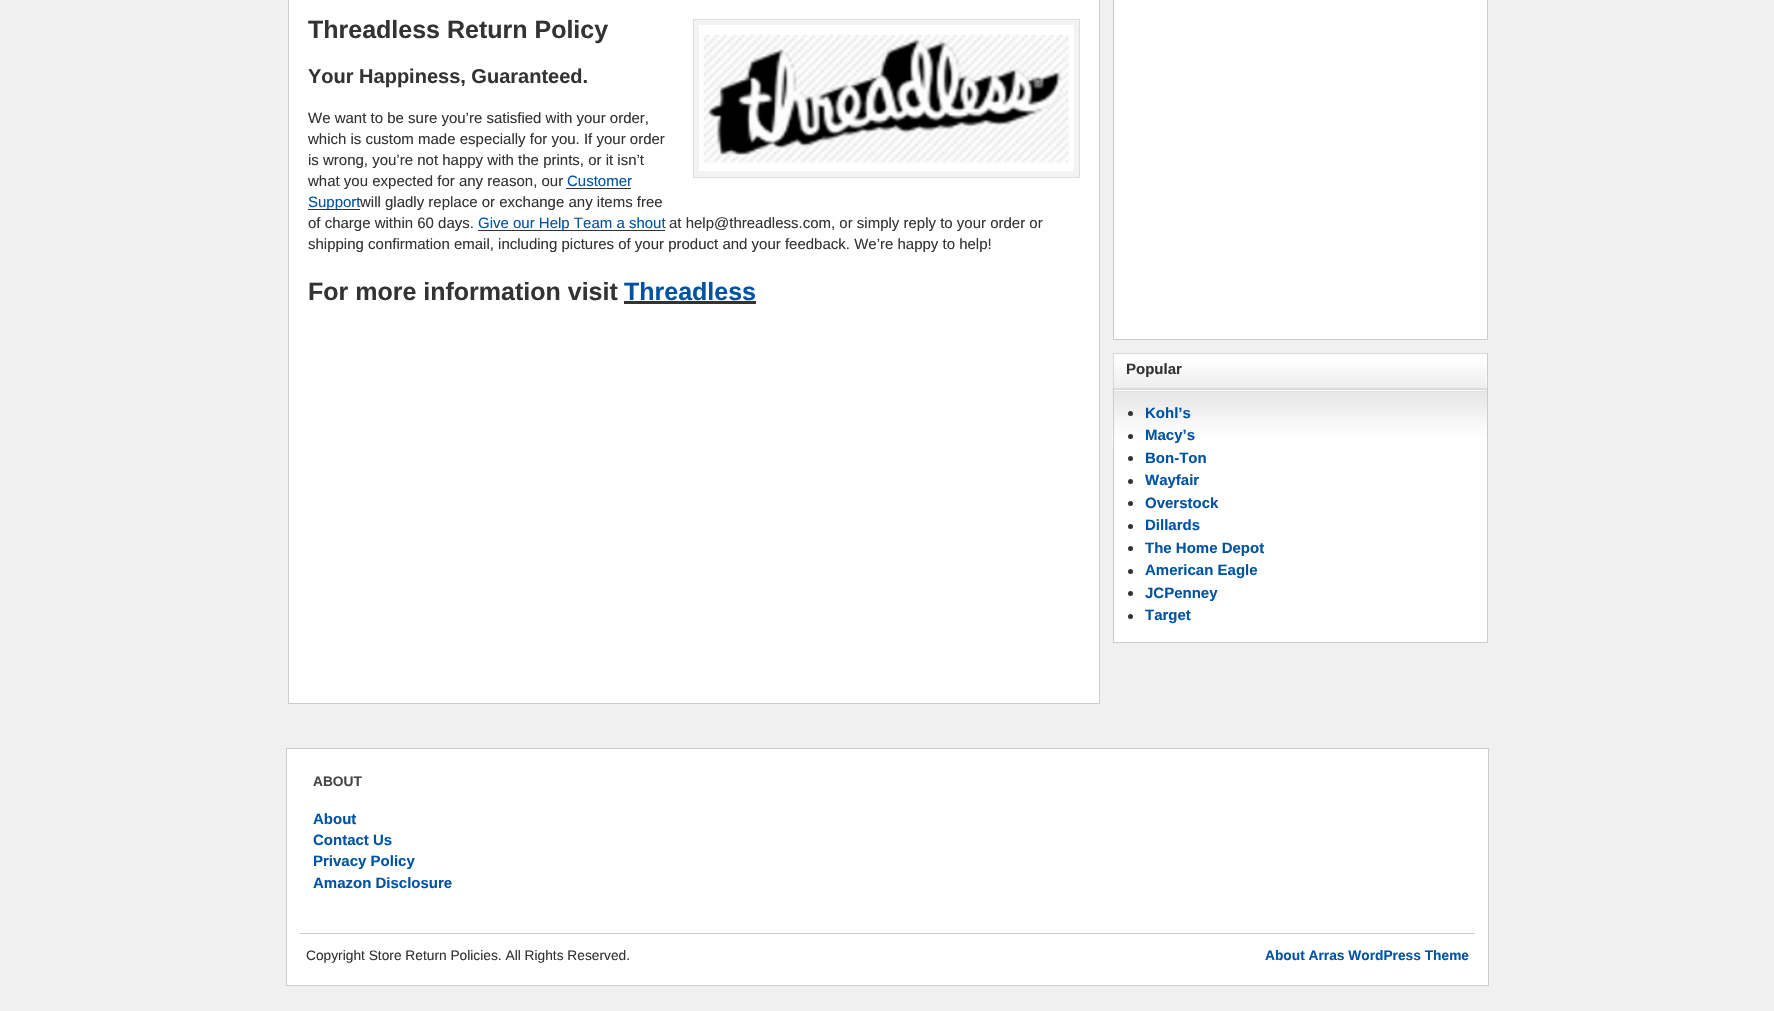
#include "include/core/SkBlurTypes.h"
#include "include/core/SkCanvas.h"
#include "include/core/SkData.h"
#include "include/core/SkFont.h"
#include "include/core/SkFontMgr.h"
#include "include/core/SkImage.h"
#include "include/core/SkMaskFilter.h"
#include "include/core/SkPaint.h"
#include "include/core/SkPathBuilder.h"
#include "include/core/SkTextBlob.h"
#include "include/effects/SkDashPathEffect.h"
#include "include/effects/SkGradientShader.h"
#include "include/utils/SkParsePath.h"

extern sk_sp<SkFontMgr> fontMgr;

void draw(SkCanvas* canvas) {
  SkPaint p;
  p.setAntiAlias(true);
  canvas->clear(SkColorSetRGB(240, 240, 240));
  p.setColor(SK_ColorWHITE);
  canvas->drawRect(SkRect::MakeLTRB(288.5f, -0.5f, 1099.5f, 703.5f), p);
  p.setStyle(SkPaint::kStroke_Style);
  p.setStrokeWidth(1);
  p.setColor(SkColorSetRGB(204, 204, 204));
  canvas->drawRect(SkRect::MakeLTRB(288.5f, -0.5f, 1099.5f, 703.5f), p);
  p.setStyle(SkPaint::kFill_Style);
  p.setColor(SkColorSetRGB(243, 243, 243));
  canvas->drawRect(SkRect::MakeLTRB(693.5f, 19.5f, 1079.5f, 177.5f), p);
  p.setStyle(SkPaint::kStroke_Style);
  p.setColor(SkColorSetRGB(221, 221, 221));
  canvas->drawRect(SkRect::MakeLTRB(693.5f, 19.5f, 1079.5f, 177.5f), p);
  canvas->drawImageRect(SkImages::DeferredFromEncodedData(SkData::MakeFromFileName("images/1.png")), SkRect::MakeLTRB(699, 25, 1074, 171), SkSamplingOptions());
  p.setStyle(SkPaint::kFill_Style);
  p.setColor(SkColorSetRGB(51, 51, 51));
  canvas->drawRect(SkRect::MakeLTRB(566, 188, 631, 189), p);
  canvas->drawRect(SkRect::MakeLTRB(308, 209, 360, 210), p);
  canvas->drawRect(SkRect::MakeLTRB(478, 230, 665, 231), p);
  canvas->drawRect(SkRect::MakeLTRB(624, 301, 756, 304), p);
  p.setColor(SK_ColorWHITE);
  canvas->drawRect(SkRect::MakeLTRB(1113.5f, -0.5f, 1487.5f, 339.5f), p);
  p.setStyle(SkPaint::kStroke_Style);
  p.setColor(SkColorSetRGB(204, 204, 204));
  canvas->drawRect(SkRect::MakeLTRB(1113.5f, -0.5f, 1487.5f, 339.5f), p);
  p.setStyle(SkPaint::kFill_Style);
  p.setColor(SK_ColorWHITE);
  canvas->drawRect(SkRect::MakeLTRB(1114, 354, 1487, 642), p);
  canvas->drawImageRect(SkImages::DeferredFromEncodedData(SkData::MakeFromFileName("images/2.png")), SkRect::MakeLTRB(1112, 386, 1487, 449), SkSamplingOptions());
  p.setStyle(SkPaint::kStroke_Style);
  p.setColor(SkColorSetRGB(204, 204, 204));
  canvas->drawRect(SkRect::MakeLTRB(1113.5f, 353.5f, 1487.5f, 642.5f), p);
  canvas->drawImageRect(SkImages::DeferredFromEncodedData(SkData::MakeFromFileName("images/3.png")), SkRect::MakeLTRB(1113, 353, 1487, 392), SkSamplingOptions());
  p.setStyle(SkPaint::kFill_Style);
  p.setColor(SK_ColorWHITE);
  canvas->drawRect(SkRect::MakeLTRB(1114, 390, 1486, 391), p);
  p.setColor(SkColorSetRGB(51, 51, 51));
  canvas->drawCircle(1130.5f, 413.5f, 2.5f, p);
  canvas->drawCircle(1130.5f, 436.5f, 2.5f, p);
  canvas->drawCircle(1130.5f, 458.5f, 2.5f, p);
  canvas->drawCircle(1130.5f, 481.5f, 2.5f, p);
  canvas->drawCircle(1130.5f, 503.5f, 2.5f, p);
  canvas->drawCircle(1130.5f, 526.5f, 2.5f, p);
  canvas->drawCircle(1130.5f, 548.5f, 2.5f, p);
  canvas->drawCircle(1130.5f, 571.5f, 2.5f, p);
  canvas->drawCircle(1130.5f, 593.5f, 2.5f, p);
  canvas->drawCircle(1130.5f, 616.5f, 2.5f, p);
  p.setColor(SK_ColorWHITE);
  canvas->drawRect(SkRect::MakeLTRB(286.5f, 748.5f, 1488.5f, 985.5f), p);
  p.setStyle(SkPaint::kStroke_Style);
  p.setColor(SkColorSetRGB(204, 204, 204));
  canvas->drawRect(SkRect::MakeLTRB(286.5f, 748.5f, 1488.5f, 985.5f), p);
  p.setStyle(SkPaint::kFill_Style);
  canvas->drawRect(SkRect::MakeLTRB(300, 933, 1475, 934), p);
  canvas->save();
  canvas->clipRect(SkRect::MakeLTRB(308, 0, 1080, 678));
  SkFont font1(fontMgr->matchFamilyStyle("Liberation Sans", SkFontStyle::Bold()), 25);
  font1.setSubpixel(true);
  p.setColor(SkColorSetRGB(51, 51, 51));
  canvas->drawString("Threadless Return Policy", 308, 38, font1, p);
  canvas->restore();
  SkFont font2(fontMgr->matchFamilyStyle("Liberation Sans", SkFontStyle::Bold()), 20);
  font2.setSubpixel(true);
  canvas->drawString("Your Happiness, Guaranteed.", 308, 83, font2, p);
  SkFont font3(fontMgr->matchFamilyStyle("Liberation Sans", SkFontStyle::Normal()), 15);
  font3.setSubpixel(true);
  canvas->drawString("We want to be sure you’re satisfied with your order,", 308, 123, font3, p);
  canvas->drawString("which is custom made especially for you. If your order", 308, 144, font3, p);
  canvas->drawString("is wrong, you’re not happy with the prints, or it isn’t", 308, 165, font3, p);
  canvas->drawString("what you expected for any reason, our", 308, 186, font3, p);
  p.setColor(SkColorSetRGB(0, 82, 163));
  canvas->drawString("Customer", 567, 186, font3, p);
  canvas->drawString("Support", 308, 207, font3, p);
  p.setColor(SkColorSetRGB(51, 51, 51));
  canvas->drawString("will gladly replace or exchange any items free", 360, 207, font3, p);
  canvas->drawString("of charge within 60 days.", 308, 228, font3, p);
  p.setColor(SkColorSetRGB(0, 82, 163));
  canvas->drawString("Give our Help Team a shout", 478, 228, font3, p);
  p.setColor(SkColorSetRGB(51, 51, 51));
  canvas->drawString("at help@threadless.com, or simply reply to your order or", 669, 228, font3, p);
  canvas->drawString("shipping confirmation email, including pictures of your product and your feedback. We’re happy to help!", 308, 249, font3, p);
  canvas->drawString("For more information visit", 308, 300, font1, p);
  p.setColor(SkColorSetRGB(0, 82, 163));
  canvas->drawString("Threadless", 624, 300, font1, p);
  SkFont font4(fontMgr->matchFamilyStyle("Liberation Sans", SkFontStyle::Bold()), 15);
  font4.setSubpixel(true);
  p.setColor(SkColorSetRGB(51, 51, 51));
  canvas->drawString("Popular", 1126, 374, font4, p);
  p.setColor(SkColorSetRGB(0, 82, 163));
  canvas->drawString("Kohl’s", 1145, 418, font4, p);
  canvas->drawString("Macy’s", 1145, 440, font4, p);
  canvas->drawString("Bon-Ton", 1145, 463, font4, p);
  canvas->drawString("Wayfair", 1145, 485, font4, p);
  canvas->drawString("Overstock", 1145, 508, font4, p);
  canvas->drawString("Dillards", 1145, 530, font4, p);
  canvas->drawString("The Home Depot", 1145, 553, font4, p);
  canvas->drawString("American Eagle", 1145, 575, font4, p);
  canvas->drawString("JCPenney", 1145, 598, font4, p);
  canvas->drawString("Target", 1145, 620, font4, p);
  SkFont font5(fontMgr->matchFamilyStyle("Liberation Sans", SkFontStyle::Bold()), 13.75f);
  font5.setSubpixel(true);
  p.setColor(SkColorSetRGB(68, 68, 68));
  canvas->drawString("ABOUT", 313, 786, font5, p);
  p.setColor(SkColorSetRGB(0, 82, 163));
  canvas->drawString("About", 313, 824, font4, p);
  canvas->drawString("Contact Us", 313, 845, font4, p);
  canvas->drawString("Privacy Policy", 313, 866, font4, p);
  canvas->drawString("Amazon Disclosure", 313, 888, font4, p);
  SkFont font6(fontMgr->matchFamilyStyle("Liberation Sans", SkFontStyle::Normal()), 13.75f);
  font6.setSubpixel(true);
  p.setColor(SkColorSetRGB(51, 51, 51));
  canvas->drawString("Copyright Store Return Policies. All Rights Reserved.", 306, 960, font6, p);
  p.setColor(SkColorSetRGB(0, 82, 163));
  canvas->drawString("About Arras WordPress Theme", 1265, 960, font5, p);
}
